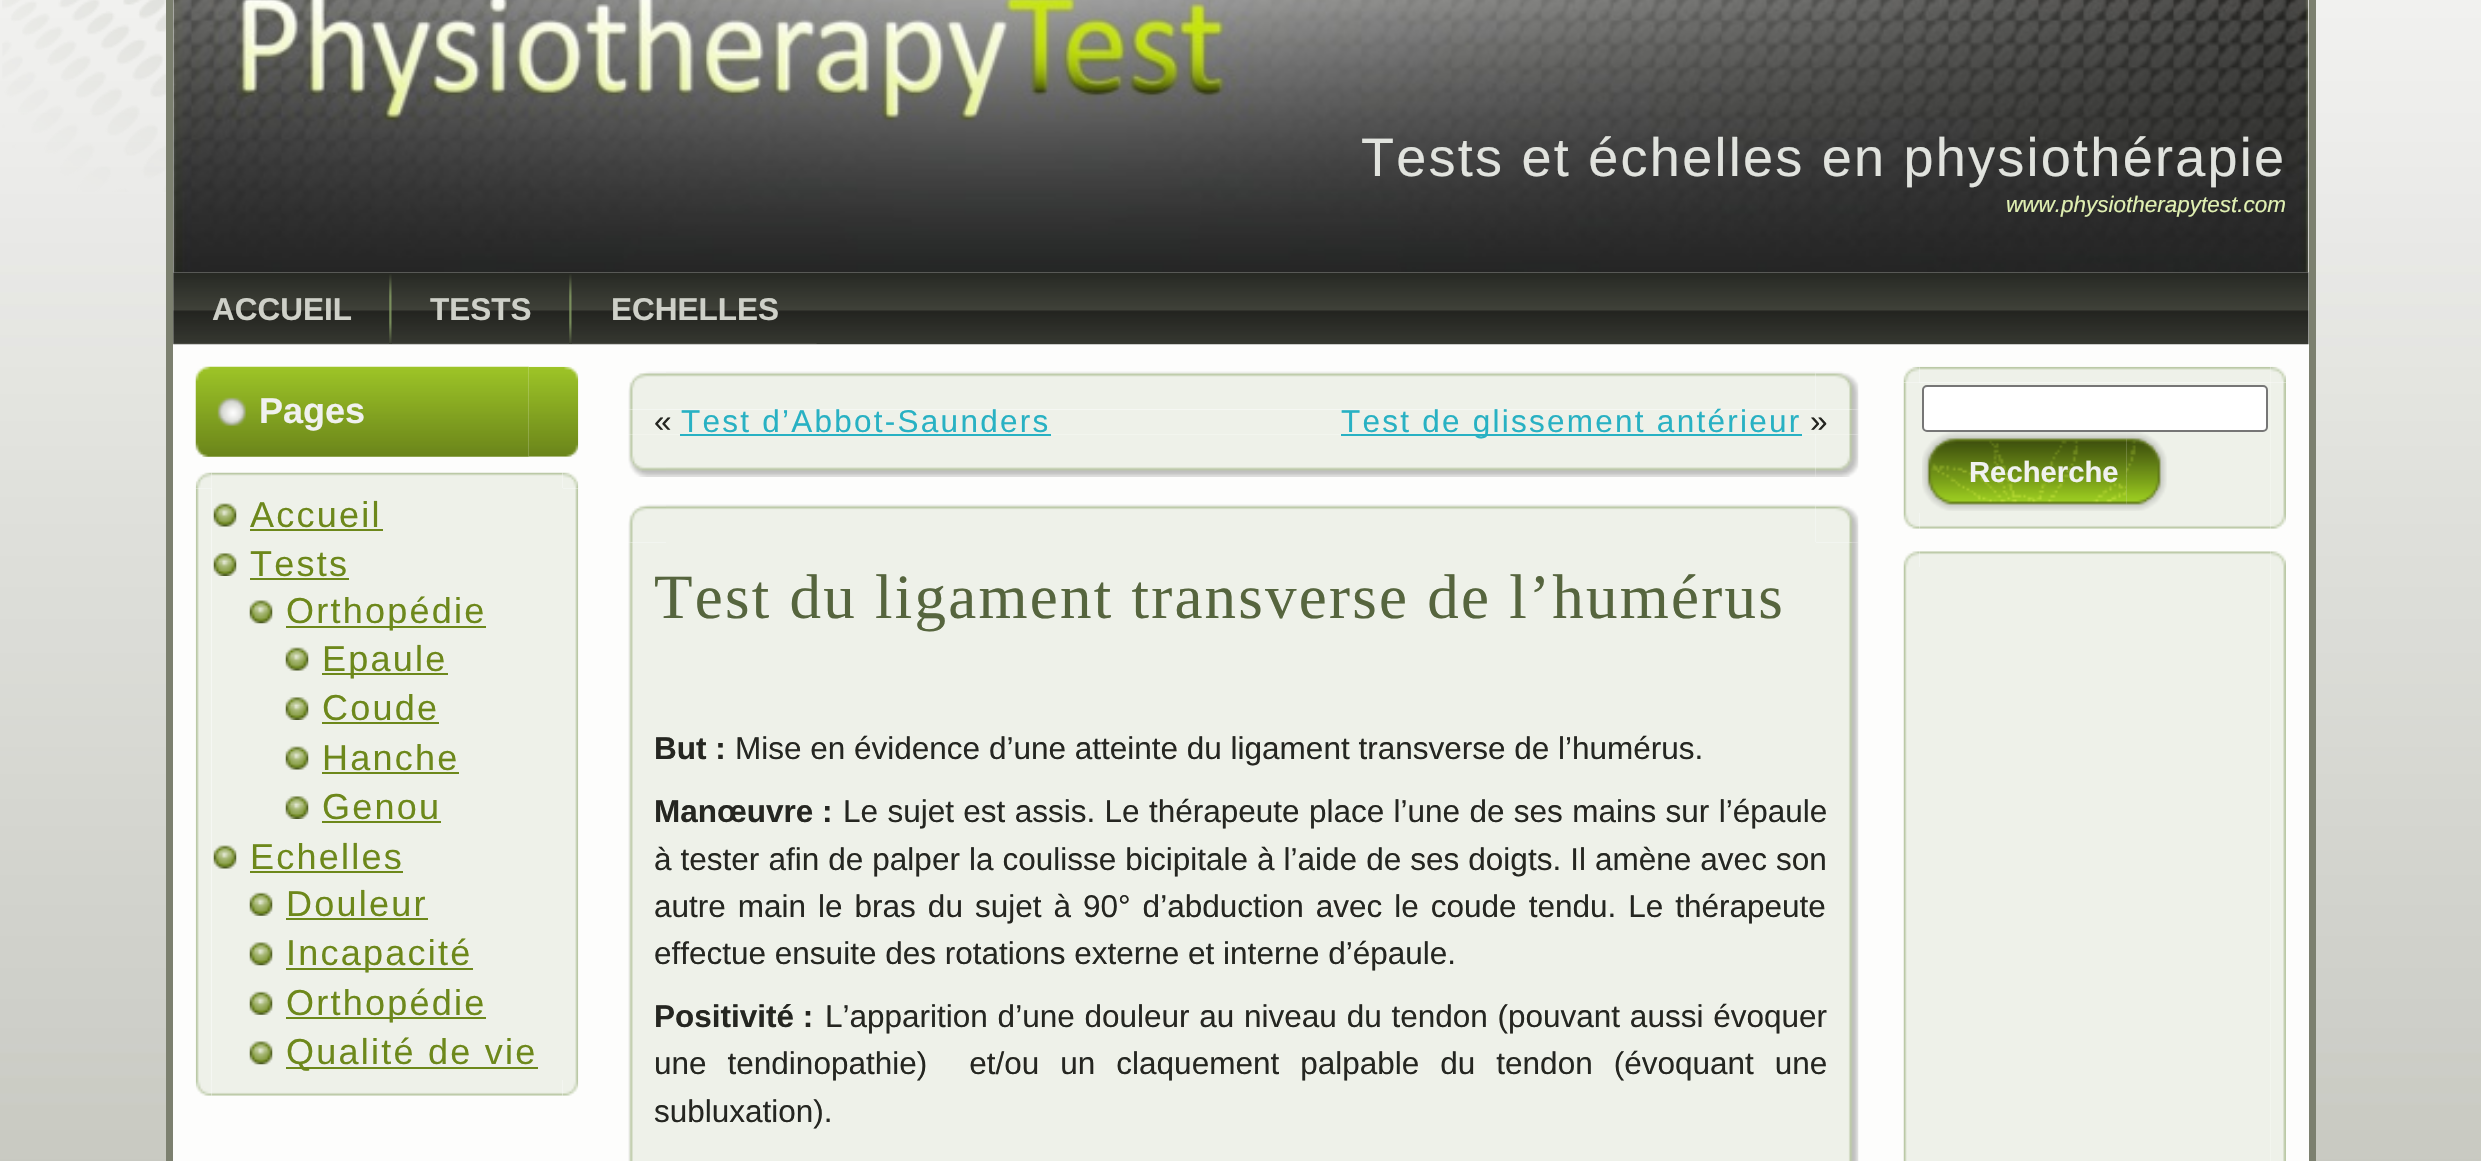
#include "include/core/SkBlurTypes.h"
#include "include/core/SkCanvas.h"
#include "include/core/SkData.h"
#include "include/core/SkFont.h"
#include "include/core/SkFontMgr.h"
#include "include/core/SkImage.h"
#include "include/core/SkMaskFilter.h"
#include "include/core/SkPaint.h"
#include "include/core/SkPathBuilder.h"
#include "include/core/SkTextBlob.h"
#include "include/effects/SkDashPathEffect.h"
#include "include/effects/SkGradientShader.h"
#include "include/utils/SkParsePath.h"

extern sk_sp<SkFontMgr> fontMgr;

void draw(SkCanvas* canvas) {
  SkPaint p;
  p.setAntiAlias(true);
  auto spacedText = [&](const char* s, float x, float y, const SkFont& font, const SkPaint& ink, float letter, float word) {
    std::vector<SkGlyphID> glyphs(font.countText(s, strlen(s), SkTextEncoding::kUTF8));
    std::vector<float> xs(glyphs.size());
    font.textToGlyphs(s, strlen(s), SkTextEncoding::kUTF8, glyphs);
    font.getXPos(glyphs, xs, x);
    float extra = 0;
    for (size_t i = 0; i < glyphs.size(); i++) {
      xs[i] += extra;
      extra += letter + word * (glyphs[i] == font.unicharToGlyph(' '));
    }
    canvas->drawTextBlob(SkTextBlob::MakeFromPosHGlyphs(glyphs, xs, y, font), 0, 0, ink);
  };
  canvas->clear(SK_ColorWHITE);
  canvas->drawImageRect(SkImages::DeferredFromEncodedData(SkData::MakeFromFileName("images/1.png")), SkRect::MakeLTRB(0, 0, 2481, 1161), SkSamplingOptions());
  canvas->drawImageRect(SkImages::DeferredFromEncodedData(SkData::MakeFromFileName("images/2.png")), SkRect::MakeLTRB(2, 0, 166, 192), SkSamplingOptions());
  p.setColor(SkColorSetRGB(124, 128, 111));
  canvas->drawRect(SkRect::MakeLTRB(166, 0, 173, 1161), p);
  p.setColor(SkColorSetRGB(253, 253, 252));
  canvas->drawRect(SkRect::MakeLTRB(173, 0, 2309, 1161), p);
  p.setColor(SkColorSetRGB(124, 128, 111));
  canvas->drawRect(SkRect::MakeLTRB(2309, 0, 2316, 1161), p);
  canvas->drawImageRect(SkImages::DeferredFromEncodedData(SkData::MakeFromFileName("images/3.png")), SkRect::MakeLTRB(173, 0, 2309, 273), SkSamplingOptions());
  canvas->drawImageRect(SkImages::DeferredFromEncodedData(SkData::MakeFromFileName("images/4.png")), SkRect::MakeLTRB(173, 272, 2309, 345), SkSamplingOptions());
  canvas->drawImageRect(SkImages::DeferredFromEncodedData(SkData::MakeFromFileName("images/5.png")), SkRect::MakeLTRB(173, 343, 389, 344), SkSamplingOptions());
  canvas->drawImageRect(SkImages::DeferredFromEncodedData(SkData::MakeFromFileName("images/6.png")), SkRect::MakeLTRB(389, 274, 392, 344), SkSamplingOptions());
  p.setColor(SkColorSetRGB(70, 72, 65));
  canvas->drawRect(SkRect::MakeLTRB(392, 343, 569, 344), p);
  canvas->drawImageRect(SkImages::DeferredFromEncodedData(SkData::MakeFromFileName("images/6.png")), SkRect::MakeLTRB(569, 274, 572, 344), SkSamplingOptions());
  canvas->drawImageRect(SkImages::DeferredFromEncodedData(SkData::MakeFromFileName("images/7.png")), SkRect::MakeLTRB(572, 343, 817, 344), SkSamplingOptions());
  canvas->drawImageRect(SkImages::DeferredFromEncodedData(SkData::MakeFromFileName("images/8.png")), SkRect::MakeLTRB(195, 366, 529, 457), SkSamplingOptions());
  canvas->drawImageRect(SkImages::DeferredFromEncodedData(SkData::MakeFromFileName("images/9.png")), SkRect::MakeLTRB(528, 366, 579, 457), SkSamplingOptions());
  canvas->drawImageRect(SkImages::DeferredFromEncodedData(SkData::MakeFromFileName("images/10.png")), SkRect::MakeLTRB(195, 472, 212, 489), SkSamplingOptions());
  canvas->drawImageRect(SkImages::DeferredFromEncodedData(SkData::MakeFromFileName("images/12.png")), SkRect::MakeLTRB(562, 472, 579, 489), SkSamplingOptions());
  canvas->drawImageRect(SkImages::DeferredFromEncodedData(SkData::MakeFromFileName("images/11.png")), SkRect::MakeLTRB(211, 472, 563, 489), SkSamplingOptions());
  canvas->drawImageRect(SkImages::DeferredFromEncodedData(SkData::MakeFromFileName("images/13.png")), SkRect::MakeLTRB(195, 488, 212, 1080), SkSamplingOptions());
  p.setColor(SkColorSetRGB(238, 241, 233));
  canvas->drawRect(SkRect::MakeLTRB(212, 488, 563, 1080), p);
  canvas->drawImageRect(SkImages::DeferredFromEncodedData(SkData::MakeFromFileName("images/14.png")), SkRect::MakeLTRB(563, 488, 579, 1080), SkSamplingOptions());
  canvas->drawImageRect(SkImages::DeferredFromEncodedData(SkData::MakeFromFileName("images/15.png")), SkRect::MakeLTRB(213, 503, 237, 527), SkSamplingOptions());
  p.setColor(SkColorSetRGB(109, 136, 27));
  canvas->drawRect(SkRect::MakeLTRB(250, 529, 383, 531), p);
  canvas->drawImageRect(SkImages::DeferredFromEncodedData(SkData::MakeFromFileName("images/16.png")), SkRect::MakeLTRB(213, 553, 237, 576), SkSamplingOptions());
  canvas->drawRect(SkRect::MakeLTRB(250, 578, 349, 580), p);
  canvas->drawImageRect(SkImages::DeferredFromEncodedData(SkData::MakeFromFileName("images/17.png")), SkRect::MakeLTRB(249, 600, 273, 624), SkSamplingOptions());
  canvas->drawRect(SkRect::MakeLTRB(286, 626, 486, 628), p);
  canvas->drawImageRect(SkImages::DeferredFromEncodedData(SkData::MakeFromFileName("images/18.png")), SkRect::MakeLTRB(285, 647, 309, 671), SkSamplingOptions());
  canvas->drawRect(SkRect::MakeLTRB(322, 673, 448, 675), p);
  canvas->drawImageRect(SkImages::DeferredFromEncodedData(SkData::MakeFromFileName("images/19.png")), SkRect::MakeLTRB(285, 697, 309, 720), SkSamplingOptions());
  canvas->drawRect(SkRect::MakeLTRB(322, 722, 439, 724), p);
  canvas->drawImageRect(SkImages::DeferredFromEncodedData(SkData::MakeFromFileName("images/18.png")), SkRect::MakeLTRB(285, 746, 309, 770), SkSamplingOptions());
  canvas->drawRect(SkRect::MakeLTRB(322, 772, 459, 774), p);
  canvas->drawImageRect(SkImages::DeferredFromEncodedData(SkData::MakeFromFileName("images/19.png")), SkRect::MakeLTRB(285, 796, 309, 819), SkSamplingOptions());
  canvas->drawRect(SkRect::MakeLTRB(322, 821, 441, 823), p);
  canvas->drawImageRect(SkImages::DeferredFromEncodedData(SkData::MakeFromFileName("images/15.png")), SkRect::MakeLTRB(213, 845, 237, 869), SkSamplingOptions());
  canvas->drawRect(SkRect::MakeLTRB(250, 871, 403, 873), p);
  canvas->drawImageRect(SkImages::DeferredFromEncodedData(SkData::MakeFromFileName("images/20.png")), SkRect::MakeLTRB(249, 892, 273, 916), SkSamplingOptions());
  canvas->drawRect(SkRect::MakeLTRB(286, 918, 428, 920), p);
  canvas->drawImageRect(SkImages::DeferredFromEncodedData(SkData::MakeFromFileName("images/17.png")), SkRect::MakeLTRB(249, 942, 273, 966), SkSamplingOptions());
  canvas->drawRect(SkRect::MakeLTRB(286, 968, 473, 970), p);
  canvas->drawImageRect(SkImages::DeferredFromEncodedData(SkData::MakeFromFileName("images/21.png")), SkRect::MakeLTRB(249, 991, 273, 1015), SkSamplingOptions());
  canvas->drawRect(SkRect::MakeLTRB(286, 1017, 486, 1019), p);
  canvas->drawImageRect(SkImages::DeferredFromEncodedData(SkData::MakeFromFileName("images/17.png")), SkRect::MakeLTRB(249, 1041, 273, 1065), SkSamplingOptions());
  canvas->drawRect(SkRect::MakeLTRB(286, 1067, 538, 1069), p);
  canvas->drawImageRect(SkImages::DeferredFromEncodedData(SkData::MakeFromFileName("images/22.png")), SkRect::MakeLTRB(195, 1080, 212, 1096), SkSamplingOptions());
  canvas->drawImageRect(SkImages::DeferredFromEncodedData(SkData::MakeFromFileName("images/24.png")), SkRect::MakeLTRB(562, 1080, 579, 1096), SkSamplingOptions());
  canvas->drawImageRect(SkImages::DeferredFromEncodedData(SkData::MakeFromFileName("images/23.png")), SkRect::MakeLTRB(211, 1080, 563, 1096), SkSamplingOptions());
  canvas->drawImageRect(SkImages::DeferredFromEncodedData(SkData::MakeFromFileName("images/25.png")), SkRect::MakeLTRB(628, 371, 666, 410), SkSamplingOptions());
  canvas->drawImageRect(SkImages::DeferredFromEncodedData(SkData::MakeFromFileName("images/27.png")), SkRect::MakeLTRB(1815, 371, 1859, 410), SkSamplingOptions());
  canvas->drawImageRect(SkImages::DeferredFromEncodedData(SkData::MakeFromFileName("images/26.png")), SkRect::MakeLTRB(666, 371, 1816, 410), SkSamplingOptions());
  canvas->drawImageRect(SkImages::DeferredFromEncodedData(SkData::MakeFromFileName("images/28.png")), SkRect::MakeLTRB(628, 409, 666, 434), SkSamplingOptions());
  canvas->drawImageRect(SkImages::DeferredFromEncodedData(SkData::MakeFromFileName("images/32.png")), SkRect::MakeLTRB(1815, 434, 1859, 477), SkSamplingOptions());
  canvas->drawImageRect(SkImages::DeferredFromEncodedData(SkData::MakeFromFileName("images/31.png")), SkRect::MakeLTRB(666, 434, 1816, 477), SkSamplingOptions());
  p.setColor(SkColorSetRGB(40, 177, 195));
  canvas->drawRect(SkRect::MakeLTRB(680, 434, 1051, 436), p);
  canvas->drawRect(SkRect::MakeLTRB(1341, 434, 1802, 436), p);
  canvas->drawImageRect(SkImages::DeferredFromEncodedData(SkData::MakeFromFileName("images/29.png")), SkRect::MakeLTRB(1815, 409, 1859, 434), SkSamplingOptions());
  p.setColor(SkColorSetRGB(238, 241, 233));
  canvas->drawRect(SkRect::MakeLTRB(666, 410, 1816, 434), p);
  canvas->drawImageRect(SkImages::DeferredFromEncodedData(SkData::MakeFromFileName("images/30.png")), SkRect::MakeLTRB(628, 434, 666, 477), SkSamplingOptions());
  canvas->drawImageRect(SkImages::DeferredFromEncodedData(SkData::MakeFromFileName("images/33.png")), SkRect::MakeLTRB(628, 504, 666, 543), SkSamplingOptions());
  canvas->drawImageRect(SkImages::DeferredFromEncodedData(SkData::MakeFromFileName("images/35.png")), SkRect::MakeLTRB(1815, 504, 1859, 543), SkSamplingOptions());
  canvas->drawImageRect(SkImages::DeferredFromEncodedData(SkData::MakeFromFileName("images/34.png")), SkRect::MakeLTRB(666, 504, 1816, 542), SkSamplingOptions());
  canvas->drawImageRect(SkImages::DeferredFromEncodedData(SkData::MakeFromFileName("images/36.png")), SkRect::MakeLTRB(628, 542, 666, 1161), SkSamplingOptions());
  canvas->drawRect(SkRect::MakeLTRB(666, 542, 1816, 1161), p);
  canvas->drawImageRect(SkImages::DeferredFromEncodedData(SkData::MakeFromFileName("images/37.png")), SkRect::MakeLTRB(1816, 542, 1859, 1161), SkSamplingOptions());
  canvas->drawImageRect(SkImages::DeferredFromEncodedData(SkData::MakeFromFileName("images/38.png")), SkRect::MakeLTRB(1903, 366, 1920, 383), SkSamplingOptions());
  canvas->drawImageRect(SkImages::DeferredFromEncodedData(SkData::MakeFromFileName("images/39.png")), SkRect::MakeLTRB(1919, 366, 2270, 383), SkSamplingOptions());
  canvas->drawImageRect(SkImages::DeferredFromEncodedData(SkData::MakeFromFileName("images/40.png")), SkRect::MakeLTRB(2270, 366, 2286, 383), SkSamplingOptions());
  canvas->drawImageRect(SkImages::DeferredFromEncodedData(SkData::MakeFromFileName("images/41.png")), SkRect::MakeLTRB(1903, 382, 1920, 513), SkSamplingOptions());
  canvas->drawRect(SkRect::MakeLTRB(1919, 383, 2270, 513), p);
  canvas->drawImageRect(SkImages::DeferredFromEncodedData(SkData::MakeFromFileName("images/42.png")), SkRect::MakeLTRB(2270, 382, 2286, 513), SkSamplingOptions());
  p.setColor(SK_ColorWHITE);
  canvas->drawRoundRect(SkRect::MakeLTRB(1923, 386, 2267, 431), 4, 4, p);
  p.setStyle(SkPaint::kStroke_Style);
  p.setStrokeWidth(2);
  p.setColor(SkColorSetRGB(118, 118, 118));
  canvas->drawRoundRect(SkRect::MakeLTRB(1923, 386, 2267, 431), 4, 4, p);
  canvas->drawImageRect(SkImages::DeferredFromEncodedData(SkData::MakeFromFileName("images/43.png")), SkRect::MakeLTRB(1922, 432, 2127, 511), SkSamplingOptions());
  canvas->drawImageRect(SkImages::DeferredFromEncodedData(SkData::MakeFromFileName("images/44.png")), SkRect::MakeLTRB(2126, 432, 2167, 511), SkSamplingOptions());
  canvas->drawImageRect(SkImages::DeferredFromEncodedData(SkData::MakeFromFileName("images/45.png")), SkRect::MakeLTRB(1903, 513, 1920, 529), SkSamplingOptions());
  canvas->drawImageRect(SkImages::DeferredFromEncodedData(SkData::MakeFromFileName("images/46.png")), SkRect::MakeLTRB(1919, 513, 2270, 529), SkSamplingOptions());
  canvas->drawImageRect(SkImages::DeferredFromEncodedData(SkData::MakeFromFileName("images/47.png")), SkRect::MakeLTRB(2270, 513, 2286, 529), SkSamplingOptions());
  canvas->drawImageRect(SkImages::DeferredFromEncodedData(SkData::MakeFromFileName("images/48.png")), SkRect::MakeLTRB(1903, 551, 1920, 567), SkSamplingOptions());
  canvas->drawImageRect(SkImages::DeferredFromEncodedData(SkData::MakeFromFileName("images/49.png")), SkRect::MakeLTRB(1919, 551, 2270, 567), SkSamplingOptions());
  canvas->drawImageRect(SkImages::DeferredFromEncodedData(SkData::MakeFromFileName("images/50.png")), SkRect::MakeLTRB(2270, 551, 2286, 567), SkSamplingOptions());
  canvas->drawImageRect(SkImages::DeferredFromEncodedData(SkData::MakeFromFileName("images/51.png")), SkRect::MakeLTRB(1903, 567, 1919, 1161), SkSamplingOptions());
  p.setStyle(SkPaint::kFill_Style);
  p.setColor(SkColorSetRGB(238, 241, 233));
  canvas->drawRect(SkRect::MakeLTRB(1919, 567, 2270, 1161), p);
  canvas->drawImageRect(SkImages::DeferredFromEncodedData(SkData::MakeFromFileName("images/52.png")), SkRect::MakeLTRB(2270, 567, 2286, 1161), SkSamplingOptions());
  SkFont font1(fontMgr->matchFamilyStyle("Liberation Sans", SkFontStyle::Normal()), 54);
  font1.setSubpixel(true);
  p.setColor(SkColorSetRGB(225, 227, 222));
  spacedText("Tests et échelles en physiothérapie", 1361, 176, font1, p, 2.25f, 0);
  SkFont font2(fontMgr->matchFamilyStyle("Liberation Sans", SkFontStyle::Italic()), 22.5f);
  font2.setSubpixel(true);
  p.setColor(SkColorSetRGB(224, 240, 178));
  canvas->drawString("www.physiotherapytest.com", 2006, 212, font2, p);
  SkFont font3(fontMgr->matchFamilyStyle("Liberation Sans", SkFontStyle::Bold()), 31.5f);
  font3.setSubpixel(true);
  p.setColor(SkColorSetRGB(206, 208, 200));
  canvas->drawString("ACCUEIL", 212, 320, font3, p);
  canvas->drawString("TESTS", 430, 320, font3, p);
  canvas->drawString("ECHELLES", 611, 320, font3, p);
  SkFont font4(fontMgr->matchFamilyStyle("Liberation Sans", SkFontStyle::Bold()), 36);
  font4.setSubpixel(true);
  p.setColor(SkColorSetRGB(240, 241, 239));
  canvas->drawString("Pages", 259, 423, font4, p);
  SkFont font5(fontMgr->matchFamilyStyle("Liberation Sans", SkFontStyle::Normal()), 36);
  font5.setSubpixel(true);
  p.setColor(SkColorSetRGB(109, 136, 27));
  spacedText("Accueil", 250, 527, font5, p, 2.25f, 0);
  spacedText("Tests", 250, 576, font5, p, 2.25f, 0);
  spacedText("Orthopédie", 286, 623, font5, p, 2.25f, 0);
  spacedText("Epaule", 322, 671, font5, p, 2.25f, 0);
  spacedText("Coude", 322, 720, font5, p, 2.25f, 0);
  spacedText("Hanche", 322, 770, font5, p, 2.25f, 0);
  spacedText("Genou", 322, 819, font5, p, 2.25f, 0);
  spacedText("Echelles", 250, 869, font5, p, 2.25f, 0);
  spacedText("Douleur", 286, 916, font5, p, 2.25f, 0);
  spacedText("Incapacité", 286, 965, font5, p, 2.25f, 0);
  spacedText("Orthopédie", 286, 1015, font5, p, 2.25f, 0);
  spacedText("Qualité de vie", 286, 1064, font5, p, 2.25f, 0);
  SkFont font6(fontMgr->matchFamilyStyle("Liberation Sans", SkFontStyle::Normal()), 31.5f);
  font6.setSubpixel(true);
  p.setColor(SkColorSetRGB(37, 38, 33));
  canvas->drawString("«", 654, 432, font6, p);
  p.setColor(SkColorSetRGB(40, 177, 195));
  spacedText("Test d’Abbot-Saunders", 681, 432, font6, p, 2.25f, 0);
  spacedText("Test de glissement antérieur", 1341, 432, font6, p, 2.25f, 0);
  p.setColor(SkColorSetRGB(37, 38, 33));
  canvas->drawString("»", 1810, 432, font6, p);
  SkFont font7(fontMgr->matchFamilyStyle("Liberation Serif", SkFontStyle::Normal()), 63);
  font7.setSubpixel(true);
  p.setColor(SkColorSetRGB(86, 101, 62));
  spacedText("Test du ligament transverse de l’humérus", 654, 618, font7, p, 2.25f, 0);
  p.setColor(SkColorSetRGB(37, 38, 33));
  canvas->drawString("But :", 654, 759, font3, p);
  canvas->drawString("Mise en évidence d’une atteinte du ligament transverse de l’humérus.", 735, 759, font6, p);
  canvas->drawString("Manœuvre :", 654, 822, font3, p);
  spacedText("Le sujet est assis. Le thérapeute place l’une de ses mains sur l’épaule", 843, 822, font6, p, 0, 0.6f);
  spacedText("à tester afin de palper la coulisse bicipitale à l’aide de ses doigts. Il amène avec son", 654, 870, font6, p, 0, 0.3f);
  spacedText("autre main le bras du sujet à 90° d’abduction avec le coude tendu. Le thérapeute", 654, 917, font6, p, 0, 3.25f);
  canvas->drawString("effectue ensuite des rotations externe et interne d’épaule.", 654, 964, font6, p);
  canvas->drawString("Positivité :", 654, 1027, font3, p);
  spacedText("L’apparition d’une douleur au niveau du tendon (pouvant aussi évoquer", 825, 1027, font6, p, 0, 1);
  spacedText("une tendinopathie)  et/ou un claquement palpable du tendon (évoquant une", 654, 1074, font6, p, 0, 12.25f);
  canvas->drawString("subluxation).", 654, 1122, font6, p);
  SkFont font8(fontMgr->matchFamilyStyle("Liberation Sans", SkFontStyle::Bold()), 29.25f);
  font8.setSubpixel(true);
  p.setColor(SkColorSetRGB(240, 241, 239));
  canvas->drawString("Recherche", 1969, 482, font8, p);
}
